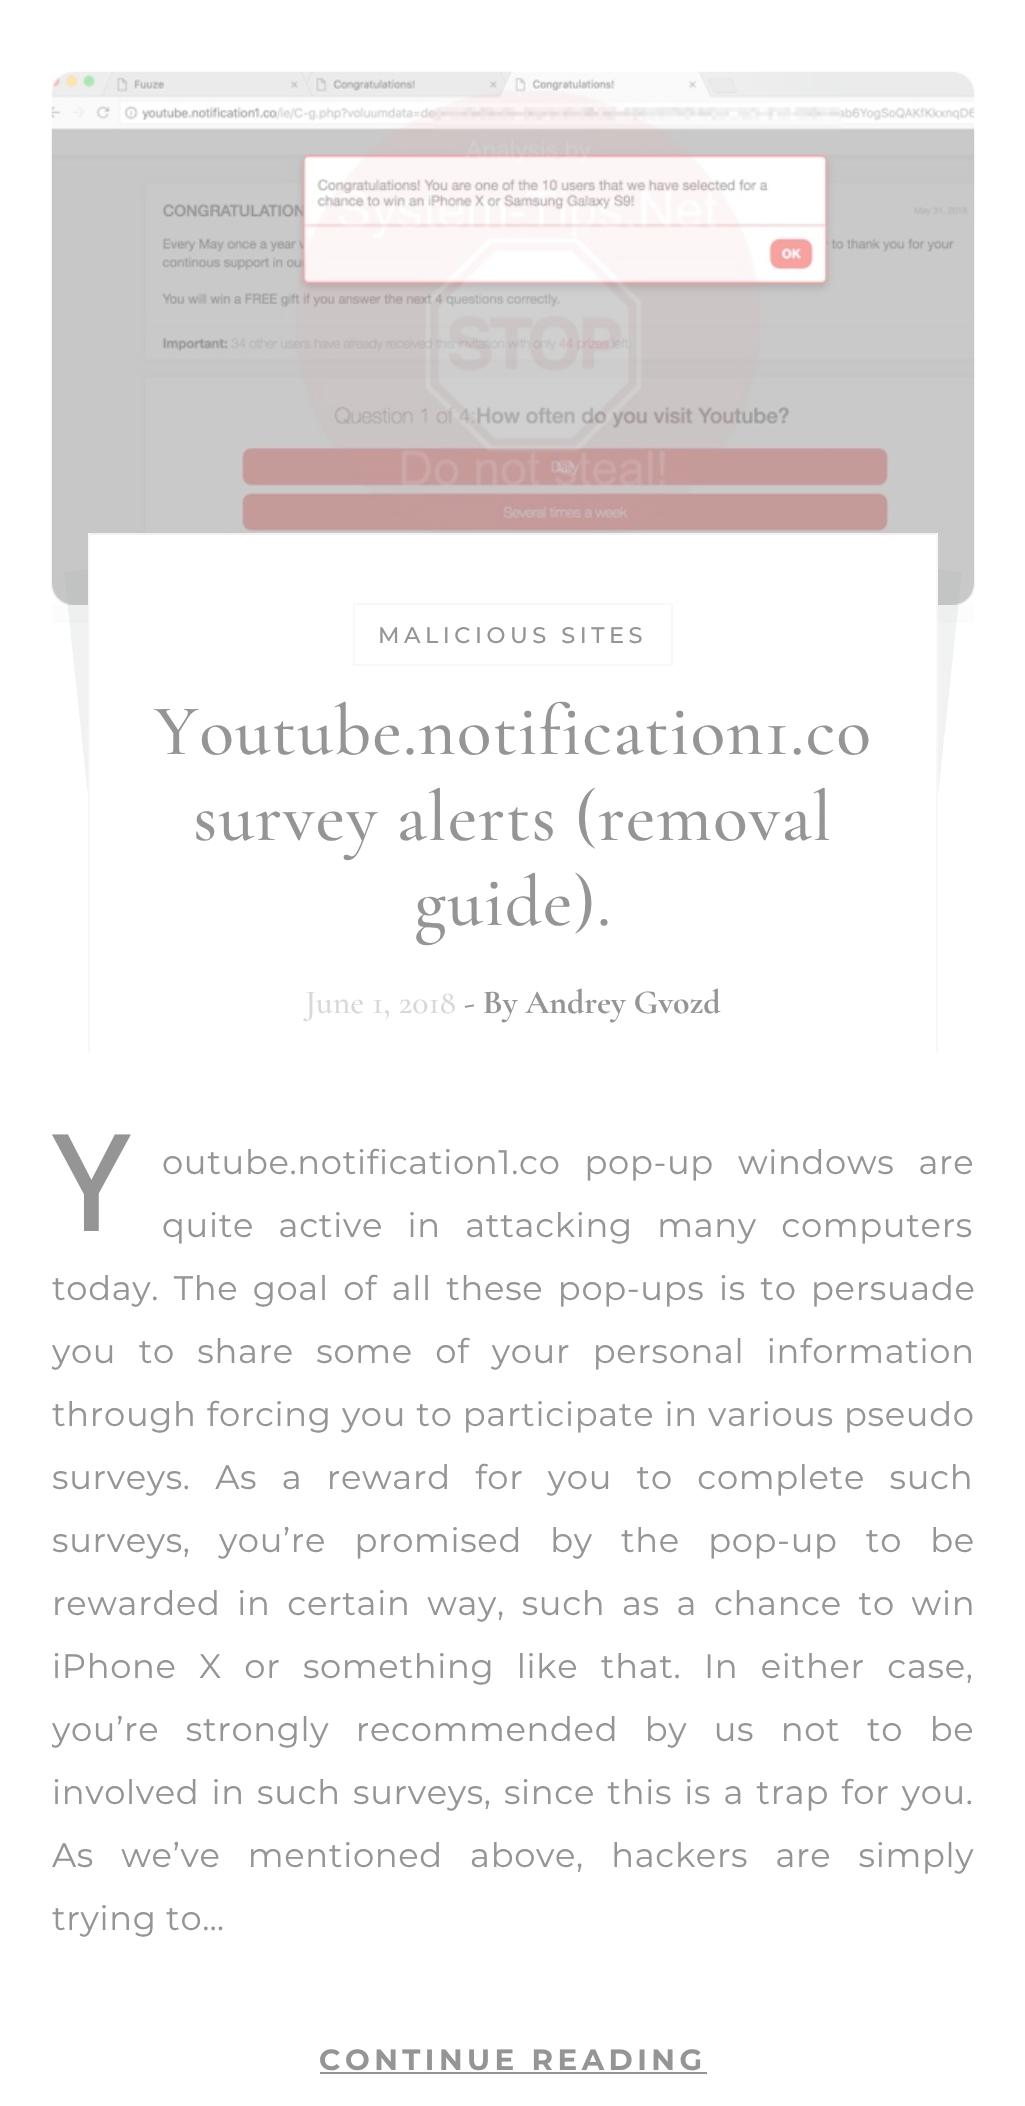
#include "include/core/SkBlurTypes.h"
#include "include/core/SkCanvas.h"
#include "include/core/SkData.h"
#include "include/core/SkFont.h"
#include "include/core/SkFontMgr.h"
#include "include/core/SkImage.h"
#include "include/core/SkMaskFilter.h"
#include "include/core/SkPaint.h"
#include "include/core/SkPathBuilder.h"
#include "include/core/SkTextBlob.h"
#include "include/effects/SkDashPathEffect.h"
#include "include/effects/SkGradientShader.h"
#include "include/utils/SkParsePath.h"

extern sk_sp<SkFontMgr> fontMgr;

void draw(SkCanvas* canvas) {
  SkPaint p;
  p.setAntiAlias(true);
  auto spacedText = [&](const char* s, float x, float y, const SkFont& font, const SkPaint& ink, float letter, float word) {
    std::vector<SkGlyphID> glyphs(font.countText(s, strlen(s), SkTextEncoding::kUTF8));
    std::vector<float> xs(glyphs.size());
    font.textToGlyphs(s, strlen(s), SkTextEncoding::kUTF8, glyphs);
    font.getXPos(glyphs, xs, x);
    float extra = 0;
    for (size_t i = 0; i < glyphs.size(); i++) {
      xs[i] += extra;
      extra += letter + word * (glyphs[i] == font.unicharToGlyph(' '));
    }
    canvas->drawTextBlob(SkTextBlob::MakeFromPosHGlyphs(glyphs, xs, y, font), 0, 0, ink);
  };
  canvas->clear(SK_ColorWHITE);
  p.setColor(SkColorSetRGB(252, 252, 252));
  canvas->drawRect(SkRect::MakeLTRB(52, 605, 974, 623), p);
  canvas->drawImageRect(SkImages::DeferredFromEncodedData(SkData::MakeFromFileName("images/1.png")), SkRect::MakeLTRB(51, 71, 975, 605), SkSamplingOptions());
  p.setColor(SkColorSetARGB(38, 164, 166, 168));
  canvas->drawPath(SkPathBuilder().moveTo(64, 572).lineTo(109, 567).lineTo(144, 903).lineTo(100, 908).close().detach(), p);
  canvas->drawPath(SkPathBuilder().moveTo(917, 567).lineTo(962, 572).lineTo(926, 908).lineTo(882, 903).close().detach(), p);
  p.setColor(SK_ColorWHITE);
  canvas->drawRect(SkRect::MakeLTRB(90, 535, 936, 908), p);
  p.setColor(SkColorSetRGB(241, 241, 241));
  canvas->drawRect(SkRect::MakeLTRB(88, 533, 938, 535), p);
  p.setColor(SkColorSetRGB(248, 248, 248));
  canvas->drawRect(SkRect::MakeLTRB(936, 533, 938, 1053), p);
  canvas->drawRect(SkRect::MakeLTRB(88, 533, 90, 1053), p);
  p.setStyle(SkPaint::kStroke_Style);
  p.setStrokeWidth(2);
  canvas->drawRect(SkRect::MakeLTRB(354, 604, 672, 665), p);
  p.setStyle(SkPaint::kFill_Style);
  p.setColor(SkColorSetRGB(148, 148, 148));
  canvas->drawRect(SkRect::MakeLTRB(320, 2072, 707, 2074), p);
  SkFont font1(fontMgr->matchFamilyStyle("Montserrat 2", SkFontStyle(100, SkFontStyle::kNormal_Width, SkFontStyle::kUpright_Slant)), 22.5f);
  font1.setSubpixel(true);
  p.setColor(SkColorSetRGB(149, 149, 149));
  spacedText("MALICIOUS SITES", 378, 643, font1, p, 4.5f, 0);
  SkFont font2(fontMgr->matchFamilyStyle("Cormorant Garamond", SkFontStyle(500, SkFontStyle::kNormal_Width, SkFontStyle::kUpright_Slant)), 72);
  font2.setSubpixel(true);
  spacedText("Youtube.notification1.co", 154, 754, font2, p, 1.1f, 0);
  spacedText("survey alerts (removal", 193, 840, font2, p, 1.1f, 0);
  spacedText("guide).", 414, 925, font2, p, 1.1f, 0);
  SkFont font3(fontMgr->matchFamilyStyle("Cormorant Garamond", SkFontStyle(500, SkFontStyle::kNormal_Width, SkFontStyle::kUpright_Slant)), 33.75f);
  font3.setSubpixel(true);
  p.setColor(SkColorSetRGB(216, 216, 216));
  canvas->drawString("June 1, 2018", 305, 1013, font3, p);
  SkFont font4(fontMgr->matchFamilyStyle("Cormorant Garamond", SkFontStyle::Bold()), 33.75f);
  font4.setSubpixel(true);
  p.setColor(SkColorSetRGB(149, 149, 149));
  canvas->drawString("- By Andrey Gvozd", 464, 1013, font4, p);
  SkFont font5(fontMgr->matchFamilyStyle("Noto Sans", SkFontStyle(500, SkFontStyle::kNormal_Width, SkFontStyle::kUpright_Slant)), 135);
  font5.setSubpixel(true);
  spacedText("Y", 52, 1231, font5, p, 0.67f, 0);
  SkFont font6(fontMgr->matchFamilyStyle("Montserrat", SkFontStyle(100, SkFontStyle::kNormal_Width, SkFontStyle::kUpright_Slant)), 33.75f);
  font6.setSubpixel(true);
  spacedText("outube.notification1.co pop-up windows are", 162, 1174, font6, p, 0.67f, 14.5f);
  spacedText("quite active in attacking many computers", 162, 1237, font6, p, 0.67f, 15);
  spacedText("today. The goal of all these pop-ups is to persuade", 52, 1300, font6, p, 0.67f, 5);
  canvas->save();
  canvas->clipRect(SkRect::MakeLTRB(52, 1053, 974, 1985));
  spacedText("you to share some of your personal information", 52, 1363, font6, p, 0.67f, 13);
  canvas->restore();
  spacedText("through forcing you to participate in various pseudo", 52, 1426, font6, p, 0.67f, 0.75f);
  spacedText("surveys. As a reward for you to complete such", 52, 1489, font6, p, 0.67f, 15);
  spacedText("surveys, you’re promised by the pop-up to be", 52, 1552, font6, p, 0.67f, 18.75f);
  spacedText("rewarded in certain way, such as a chance to win", 52, 1615, font6, p, 0.67f, 7.25f);
  spacedText("iPhone X or something like that. In either case,", 52, 1678, font6, p, 0.67f, 13);
  canvas->save();
  canvas->clipRect(SkRect::MakeLTRB(52, 1053, 974, 1985));
  spacedText("you’re strongly recommended by us not to be", 52, 1741, font6, p, 0.67f, 17);
  canvas->restore();
  spacedText("involved in such surveys, since this is a trap for you.", 52, 1804, font6, p, 0.67f, 2.75f);
  spacedText("As we’ve mentioned above, hackers are simply", 52, 1867, font6, p, 0.67f, 17.75f);
  spacedText("trying to…", 52, 1930, font6, p, 0.67f, 0);
  SkFont font7(fontMgr->matchFamilyStyle("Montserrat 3", SkFontStyle(100, SkFontStyle::kNormal_Width, SkFontStyle::kUpright_Slant)), 29.25f);
  font7.setSubpixel(true);
  spacedText("CONTINUE READING", 319, 2070, font7, p, 4.5f, 0);
}
